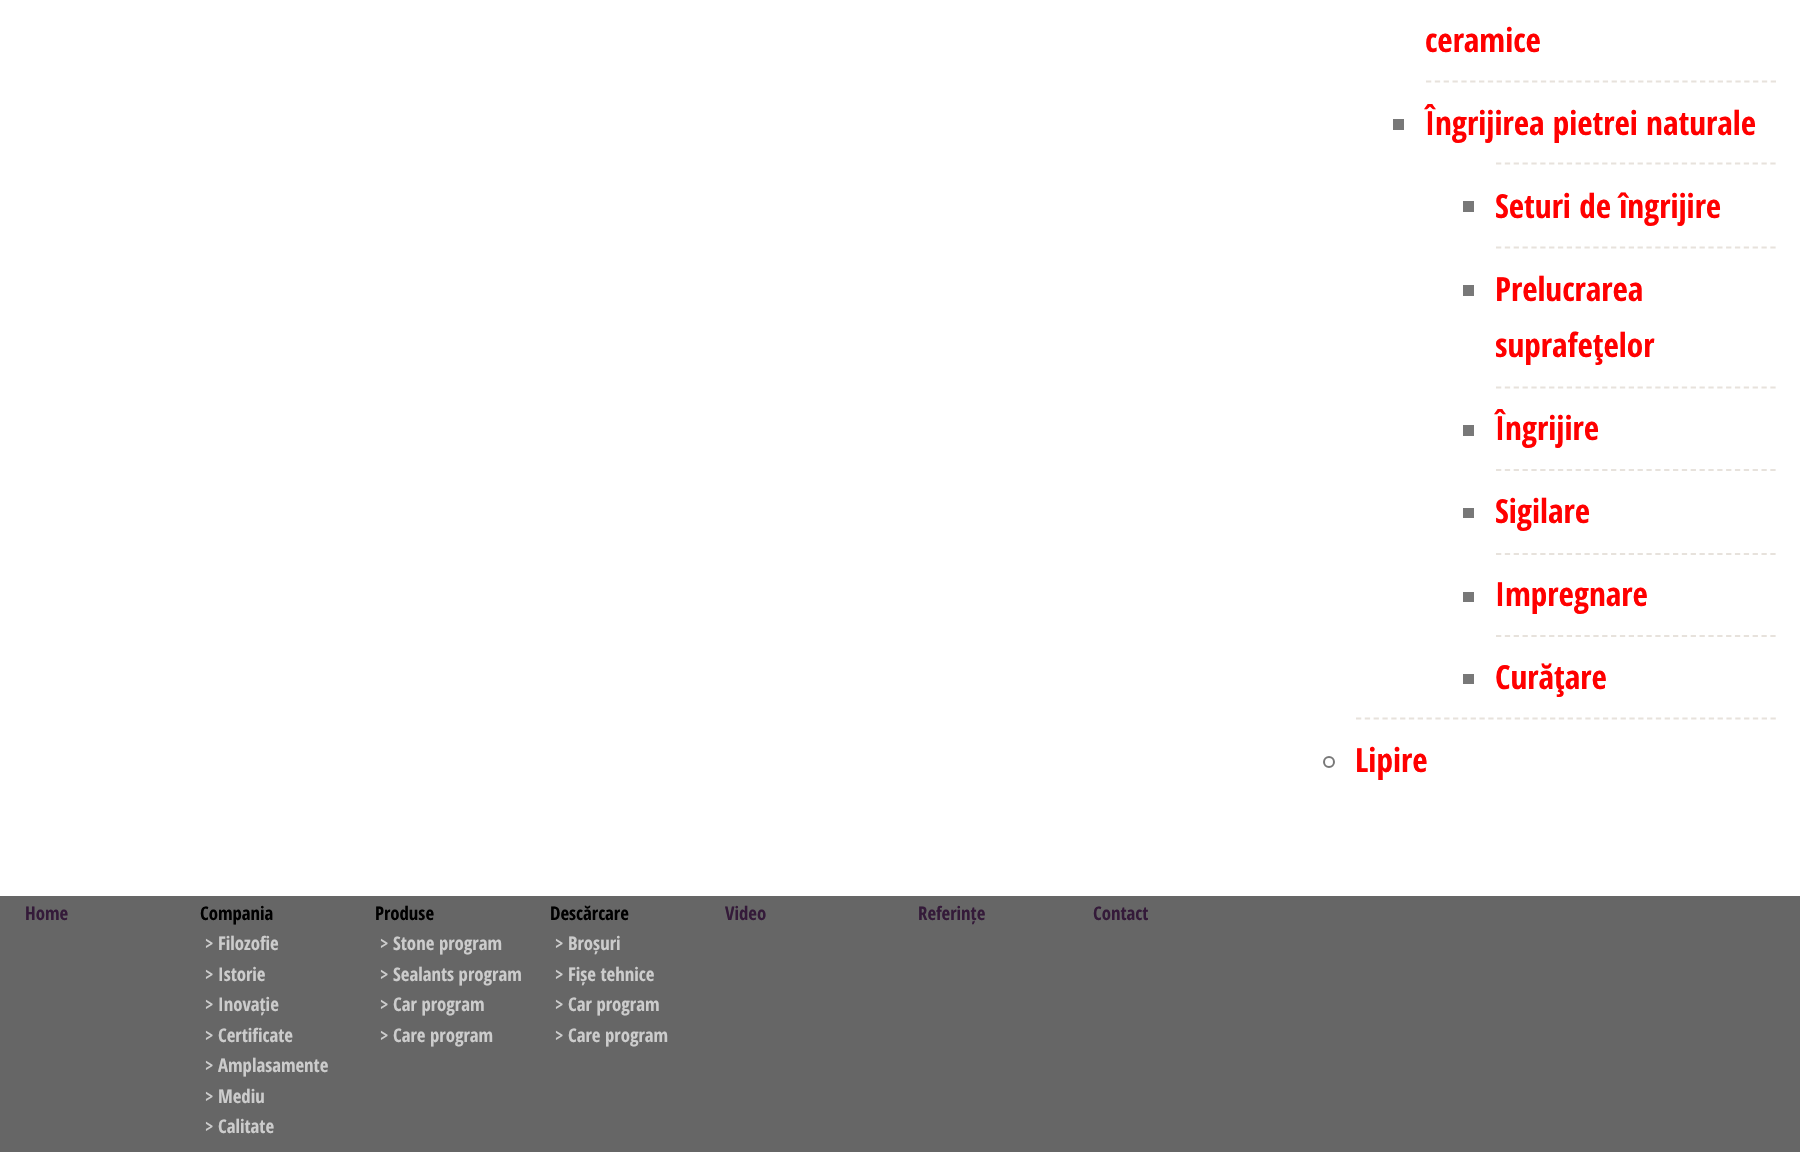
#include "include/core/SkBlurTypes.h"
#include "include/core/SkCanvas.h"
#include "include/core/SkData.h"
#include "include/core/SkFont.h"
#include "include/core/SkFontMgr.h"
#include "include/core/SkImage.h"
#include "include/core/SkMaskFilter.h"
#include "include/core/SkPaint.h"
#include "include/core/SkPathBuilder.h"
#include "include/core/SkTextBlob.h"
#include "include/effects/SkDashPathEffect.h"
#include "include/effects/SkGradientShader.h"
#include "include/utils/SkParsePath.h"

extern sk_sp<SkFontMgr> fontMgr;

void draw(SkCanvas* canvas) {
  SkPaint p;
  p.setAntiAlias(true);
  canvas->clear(SkColorSetRGB(102, 102, 102));
  p.setColor(SK_ColorWHITE);
  canvas->drawRect(SkRect::MakeLTRB(0, 0, 1800, 896), p);
  p.setStyle(SkPaint::kStroke_Style);
  p.setStrokeWidth(1.8f);
  p.setColor(SkColorSetRGB(231, 226, 220));
  p.setPathEffect(SkDashPathEffect::Make({{5.25f, 3.59f}}, 0));
  canvas->drawPath(SkPathBuilder().moveTo(1426, 81.5f).lineTo(1776, 81.5f).detach(), p);
  p.setPathEffect(nullptr);
  p.setStyle(SkPaint::kFill_Style);
  p.setColor(SkColorSetRGB(120, 120, 120));
  canvas->drawRect(SkRect::MakeLTRB(1393, 119, 1404, 130), p);
  p.setStyle(SkPaint::kStroke_Style);
  p.setColor(SkColorSetRGB(231, 226, 220));
  p.setPathEffect(SkDashPathEffect::Make({{5.25f, 3.6f}}, 0));
  canvas->drawPath(SkPathBuilder().moveTo(1496, 163.5f).lineTo(1776, 163.5f).detach(), p);
  p.setPathEffect(nullptr);
  p.setStyle(SkPaint::kFill_Style);
  p.setColor(SkColorSetRGB(120, 120, 120));
  canvas->drawRect(SkRect::MakeLTRB(1463, 201, 1474, 212), p);
  p.setStyle(SkPaint::kStroke_Style);
  p.setColor(SkColorSetRGB(231, 226, 220));
  p.setPathEffect(SkDashPathEffect::Make({{5.25f, 3.6f}}, 0));
  canvas->drawPath(SkPathBuilder().moveTo(1496, 247.5f).lineTo(1776, 247.5f).detach(), p);
  p.setPathEffect(nullptr);
  p.setStyle(SkPaint::kFill_Style);
  p.setColor(SkColorSetRGB(120, 120, 120));
  canvas->drawRect(SkRect::MakeLTRB(1463, 285, 1474, 296), p);
  p.setStyle(SkPaint::kStroke_Style);
  p.setColor(SkColorSetRGB(231, 226, 220));
  p.setPathEffect(SkDashPathEffect::Make({{5.25f, 3.6f}}, 0));
  canvas->drawPath(SkPathBuilder().moveTo(1496, 387.5f).lineTo(1776, 387.5f).detach(), p);
  p.setPathEffect(nullptr);
  p.setStyle(SkPaint::kFill_Style);
  p.setColor(SkColorSetRGB(120, 120, 120));
  canvas->drawRect(SkRect::MakeLTRB(1463, 425, 1474, 436), p);
  p.setStyle(SkPaint::kStroke_Style);
  p.setColor(SkColorSetRGB(231, 226, 220));
  p.setPathEffect(SkDashPathEffect::Make({{5.25f, 3.6f}}, 0));
  canvas->drawPath(SkPathBuilder().moveTo(1496, 470).lineTo(1776, 470).detach(), p);
  p.setPathEffect(nullptr);
  p.setStyle(SkPaint::kFill_Style);
  p.setColor(SkColorSetRGB(120, 120, 120));
  canvas->drawRect(SkRect::MakeLTRB(1463, 508, 1474, 518), p);
  p.setStyle(SkPaint::kStroke_Style);
  p.setColor(SkColorSetRGB(231, 226, 220));
  p.setPathEffect(SkDashPathEffect::Make({{5.25f, 3.6f}}, 0));
  canvas->drawPath(SkPathBuilder().moveTo(1496, 554).lineTo(1776, 554).detach(), p);
  p.setPathEffect(nullptr);
  p.setStyle(SkPaint::kFill_Style);
  p.setColor(SkColorSetRGB(120, 120, 120));
  canvas->drawRect(SkRect::MakeLTRB(1463, 592, 1474, 602), p);
  p.setStyle(SkPaint::kStroke_Style);
  p.setColor(SkColorSetRGB(231, 226, 220));
  p.setPathEffect(SkDashPathEffect::Make({{5.25f, 3.6f}}, 0));
  canvas->drawPath(SkPathBuilder().moveTo(1496, 636).lineTo(1776, 636).detach(), p);
  p.setPathEffect(nullptr);
  p.setStyle(SkPaint::kFill_Style);
  p.setColor(SkColorSetRGB(120, 120, 120));
  canvas->drawRect(SkRect::MakeLTRB(1463, 674, 1474, 684), p);
  p.setStyle(SkPaint::kStroke_Style);
  p.setColor(SkColorSetRGB(231, 226, 220));
  p.setPathEffect(SkDashPathEffect::Make({{5.25f, 3.57f}}, 0));
  canvas->drawPath(SkPathBuilder().moveTo(1356, 718.5f).lineTo(1776, 718.5f).detach(), p);
  p.setPathEffect(nullptr);
  p.setStrokeWidth(2);
  p.setColor(SkColorSetRGB(120, 120, 120));
  canvas->drawCircle(1329, 762, 5, p);
  SkFont font1(fontMgr->matchFamilyStyle("Open Sans Condensed", SkFontStyle::Bold()), 33.25f);
  font1.setSubpixel(true);
  p.setStyle(SkPaint::kFill_Style);
  p.setColor(SkColorSetRGB(255, 0, 0));
  canvas->drawString("ceramice", 1425, 52, font1, p);
  canvas->drawString("Îngrijirea pietrei naturale", 1425, 135, font1, p);
  canvas->drawString("Seturi de îngrijire", 1495, 218, font1, p);
  canvas->drawString("Prelucrarea", 1495, 301, font1, p);
  canvas->drawString("suprafeţelor", 1495, 357, font1, p);
  canvas->drawString("Îngrijire", 1495, 440, font1, p);
  canvas->drawString("Sigilare", 1495, 523, font1, p);
  canvas->drawString("Impregnare", 1495, 606, font1, p);
  canvas->drawString("Curăţare", 1495, 689, font1, p);
  canvas->drawString("Lipire", 1355, 772, font1, p);
  SkFont font2(fontMgr->matchFamilyStyle("Open Sans Condensed", SkFontStyle::Bold()), 18.75f);
  font2.setSubpixel(true);
  p.setColor(SkColorSetRGB(52, 26, 57));
  canvas->drawString("Home", 25, 920, font2, p);
  p.setColor(SK_ColorBLACK);
  canvas->drawString("Compania", 200, 920, font2, p);
  p.setColor(SkColorSetRGB(204, 204, 204));
  canvas->drawString("> Filozofie", 205, 950, font2, p);
  canvas->drawString("> Istorie", 205, 981, font2, p);
  canvas->drawString("> Inovație", 205, 1011, font2, p);
  canvas->drawString("> Certificate", 205, 1042, font2, p);
  canvas->drawString("> Amplasamente", 205, 1072, font2, p);
  canvas->drawString("> Mediu", 205, 1103, font2, p);
  canvas->drawString("> Calitate", 205, 1133, font2, p);
  p.setColor(SK_ColorBLACK);
  canvas->drawString("Produse", 375, 920, font2, p);
  p.setColor(SkColorSetRGB(204, 204, 204));
  canvas->drawString("> Stone program", 380, 950, font2, p);
  canvas->drawString("> Sealants program", 380, 981, font2, p);
  canvas->drawString("> Car program", 380, 1011, font2, p);
  canvas->drawString("> Care program", 380, 1042, font2, p);
  p.setColor(SK_ColorBLACK);
  canvas->drawString("Descărcare", 550, 920, font2, p);
  p.setColor(SkColorSetRGB(204, 204, 204));
  canvas->drawString("> Broșuri", 555, 950, font2, p);
  canvas->drawString("> Fișe tehnice", 555, 981, font2, p);
  canvas->drawString("> Car program", 555, 1011, font2, p);
  canvas->drawString("> Care program", 555, 1042, font2, p);
  p.setColor(SkColorSetRGB(52, 26, 57));
  canvas->drawString("Video", 725, 920, font2, p);
  canvas->drawString("Referințe", 918, 920, font2, p);
  canvas->drawString("Contact", 1093, 920, font2, p);
}
